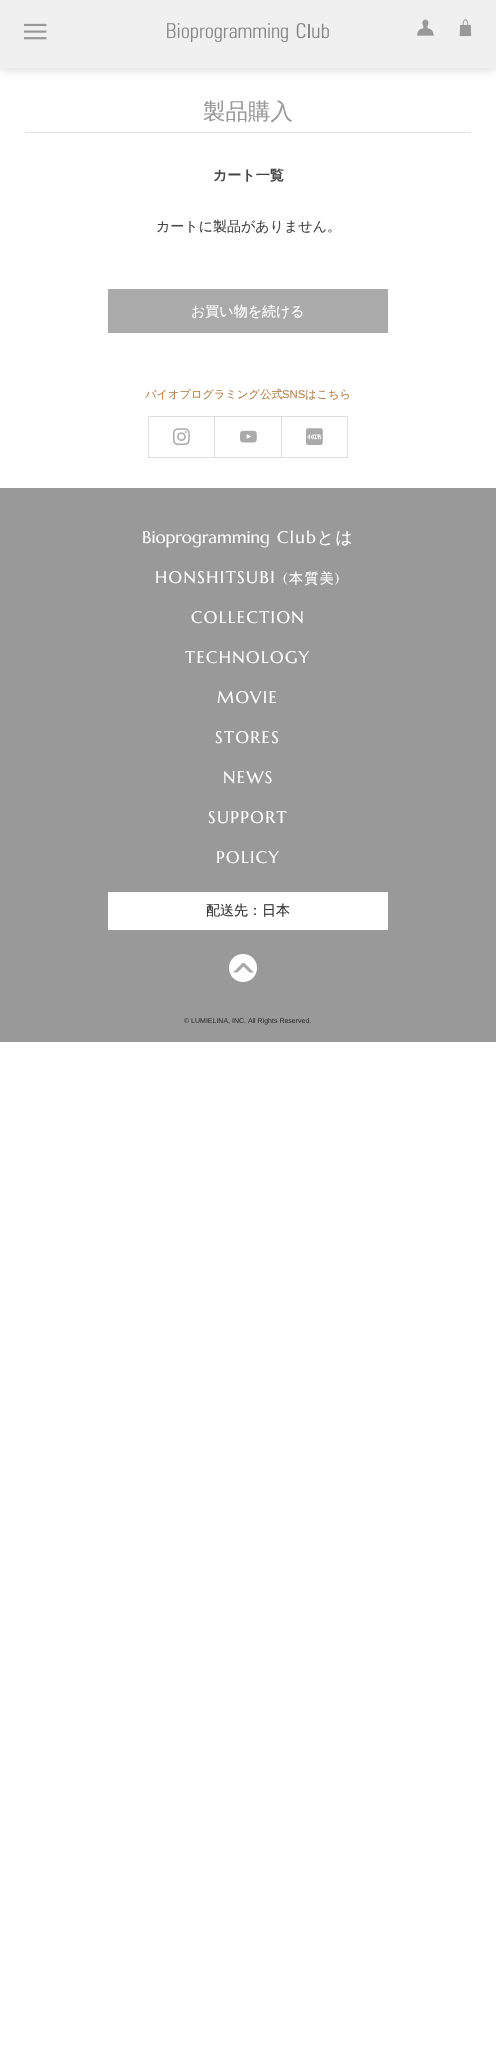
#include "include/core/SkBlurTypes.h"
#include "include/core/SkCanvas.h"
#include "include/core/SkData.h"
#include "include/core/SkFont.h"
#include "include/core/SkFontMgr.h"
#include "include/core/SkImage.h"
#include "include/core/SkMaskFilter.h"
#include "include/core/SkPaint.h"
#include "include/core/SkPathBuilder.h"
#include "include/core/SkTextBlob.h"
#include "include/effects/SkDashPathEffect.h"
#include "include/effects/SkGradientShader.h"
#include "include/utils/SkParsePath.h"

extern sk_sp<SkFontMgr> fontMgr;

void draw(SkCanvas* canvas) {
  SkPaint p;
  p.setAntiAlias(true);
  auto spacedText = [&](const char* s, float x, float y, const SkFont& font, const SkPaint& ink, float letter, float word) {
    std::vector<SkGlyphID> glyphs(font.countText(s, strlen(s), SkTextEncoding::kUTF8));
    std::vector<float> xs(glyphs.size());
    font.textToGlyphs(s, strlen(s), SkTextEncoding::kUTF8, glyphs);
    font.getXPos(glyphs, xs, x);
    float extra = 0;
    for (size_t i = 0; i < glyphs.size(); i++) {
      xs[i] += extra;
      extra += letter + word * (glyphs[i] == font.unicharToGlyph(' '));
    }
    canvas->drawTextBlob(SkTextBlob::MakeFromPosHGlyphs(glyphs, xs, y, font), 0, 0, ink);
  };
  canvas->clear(SK_ColorWHITE);
  p.setColor(SkColorSetARGB(51, 0, 0, 0));
  p.setMaskFilter(SkMaskFilter::MakeBlur(kNormal_SkBlurStyle, 5));
  canvas->drawRect(SkRect::MakeLTRB(0, 0, 496, 68), p);
  p.setMaskFilter(nullptr);
  p.setColor(SkColorSetRGB(240, 240, 240));
  canvas->drawRect(SkRect::MakeLTRB(0, 0, 496, 68), p);
  canvas->drawImageRect(SkImages::DeferredFromEncodedData(SkData::MakeFromFileName("images/1.png")), SkRect::MakeLTRB(24, 23, 47, 40), SkSamplingOptions());
  canvas->drawImageRect(SkImages::DeferredFromEncodedData(SkData::MakeFromFileName("images/2.png")), SkRect::MakeLTRB(167, 23, 329, 42), SkSamplingOptions());
  canvas->drawImageRect(SkImages::DeferredFromEncodedData(SkData::MakeFromFileName("images/3.png")), SkRect::MakeLTRB(417, 19, 434, 36), SkSamplingOptions());
  canvas->drawImageRect(SkImages::DeferredFromEncodedData(SkData::MakeFromFileName("images/4.png")), SkRect::MakeLTRB(459, 19, 472, 37), SkSamplingOptions());
  p.setColor(SkColorSetRGB(226, 226, 226));
  canvas->drawRect(SkRect::MakeLTRB(25, 132, 471, 133), p);
  p.setColor(SkColorSetRGB(170, 170, 170));
  canvas->drawRect(SkRect::MakeLTRB(108, 289, 388, 333), p);
  p.setColor(SkColorSetRGB(221, 221, 221));
  canvas->drawRect(SkRect::MakeLTRB(148, 416, 348, 417), p);
  canvas->drawRect(SkRect::MakeLTRB(347, 416, 348, 458), p);
  canvas->drawRect(SkRect::MakeLTRB(148, 457, 348, 458), p);
  canvas->drawRect(SkRect::MakeLTRB(148, 417, 149, 457), p);
  canvas->drawImageRect(SkImages::DeferredFromEncodedData(SkData::MakeFromFileName("images/5.png")), SkRect::MakeLTRB(173, 428, 190, 446), SkSamplingOptions());
  canvas->drawRect(SkRect::MakeLTRB(214, 417, 215, 457), p);
  canvas->drawImageRect(SkImages::DeferredFromEncodedData(SkData::MakeFromFileName("images/6.png")), SkRect::MakeLTRB(240, 430, 257, 443), SkSamplingOptions());
  canvas->drawRect(SkRect::MakeLTRB(281, 417, 282, 457), p);
  canvas->drawImageRect(SkImages::DeferredFromEncodedData(SkData::MakeFromFileName("images/7.png")), SkRect::MakeLTRB(306, 428, 323, 446), SkSamplingOptions());
  p.setColor(SkColorSetRGB(153, 153, 153));
  canvas->drawRect(SkRect::MakeLTRB(0, 488, 496, 1042), p);
  p.setColor(SK_ColorWHITE);
  canvas->drawRect(SkRect::MakeLTRB(108, 892, 388, 930), p);
  canvas->drawCircle(243, 968, 14, p);
  p.setColor(SkColorSetRGB(170, 170, 170));
  canvas->drawPath(SkPathBuilder().moveTo(237.5f, 972.5f).lineTo(233, 972.5f).lineTo(242.5f, 963).lineTo(244.5f, 963).lineTo(254, 972.5f).lineTo(249.5f, 972.5f).lineTo(243.5f, 966.5f).close().detach(), p);
  SkFont font1(fontMgr->matchFamilyStyle("WenQuanYi Zen Hei", SkFontStyle(500, SkFontStyle::kNormal_Width, SkFontStyle::kUpright_Slant)), 22.5f);
  font1.setSubpixel(true);
  p.setColor(SkColorSetRGB(153, 153, 153));
  canvas->drawString("製品購入", 203, 119, font1, p);
  SkFont font2(fontMgr->matchFamilyStyle("WenQuanYi Zen Hei", SkFontStyle::Bold()), 14);
  font2.setSubpixel(true);
  p.setColor(SkColorSetRGB(68, 68, 68));
  canvas->drawString("カート一覧", 213, 180, font2, p);
  SkFont font3(fontMgr->matchFamilyStyle("WenQuanYi Zen Hei", SkFontStyle(500, SkFontStyle::kNormal_Width, SkFontStyle::kUpright_Slant)), 14);
  font3.setSubpixel(true);
  canvas->drawString("カートに製品がありません。", 156, 231, font3, p);
  p.setColor(SK_ColorWHITE);
  canvas->drawString("お買い物を続ける", 191, 316, font3, p);
  SkFont font4(fontMgr->matchFamilyStyle("WenQuanYi Zen Hei", SkFontStyle(500, SkFontStyle::kNormal_Width, SkFontStyle::kUpright_Slant)), 11.25f);
  font4.setSubpixel(true);
  p.setColor(SkColorSetRGB(178, 130, 71));
  canvas->drawString("バイオプログラミング公式", 145, 398, font4, p);
  SkFont font5(fontMgr->matchFamilyStyle("Liberation Sans", SkFontStyle::Normal()), 11.25f);
  font5.setSubpixel(true);
  canvas->drawString("SNS", 282, 398, font5, p);
  canvas->drawString("はこちら", 305, 398, font4, p);
  SkFont font6(fontMgr->matchFamilyStyle("Marcellus", SkFontStyle::Normal()), 16.75f);
  font6.setSubpixel(true);
  p.setColor(SK_ColorWHITE);
  canvas->drawString("Bioprogramming", 142, 543, font6, p);
  spacedText("Club", 277, 543, font6, p, 1.4f, 0);
  SkFont font7(fontMgr->matchFamilyStyle("WenQuanYi Zen Hei", SkFontStyle(500, SkFontStyle::kNormal_Width, SkFontStyle::kUpright_Slant)), 16.75f);
  font7.setSubpixel(true);
  spacedText("とは", 317, 543, font7, p, 1.4f, 0);
  spacedText("HONSHITSUBI", 155, 583, font6, p, 1.4f, 0);
  SkFont font8(fontMgr->matchFamilyStyle("Marcellus", SkFontStyle::Normal()), 14);
  font8.setSubpixel(true);
  spacedText("(", 283, 583, font8, p, 1.4f, 0);
  spacedText("本質美", 289, 583, font3, p, 1.4f, 0);
  spacedText(")", 335, 583, font8, p, 1.4f, 0);
  spacedText("COLLECTION", 191, 623, font6, p, 1.4f, 0);
  spacedText("TECHNOLOGY", 185, 663, font6, p, 1.4f, 0);
  spacedText("MOVIE", 217, 703, font6, p, 1.4f, 0);
  spacedText("STORES", 215, 743, font6, p, 1.4f, 0);
  spacedText("NEWS", 223, 783, font6, p, 1.4f, 0);
  spacedText("SUPPORT", 208, 823, font6, p, 1.4f, 0);
  spacedText("POLICY", 216, 863, font6, p, 1.4f, 0);
  p.setColor(SkColorSetRGB(51, 51, 51));
  canvas->drawString("配送先：日本", 206, 915, font3, p);
  SkFont font9(fontMgr->matchFamilyStyle("Liberation Sans", SkFontStyle::Normal()), 7);
  font9.setSubpixel(true);
  canvas->drawString("© LUMIELINA, INC. All Rights Reserved.", 184, 1023, font9, p);
}
